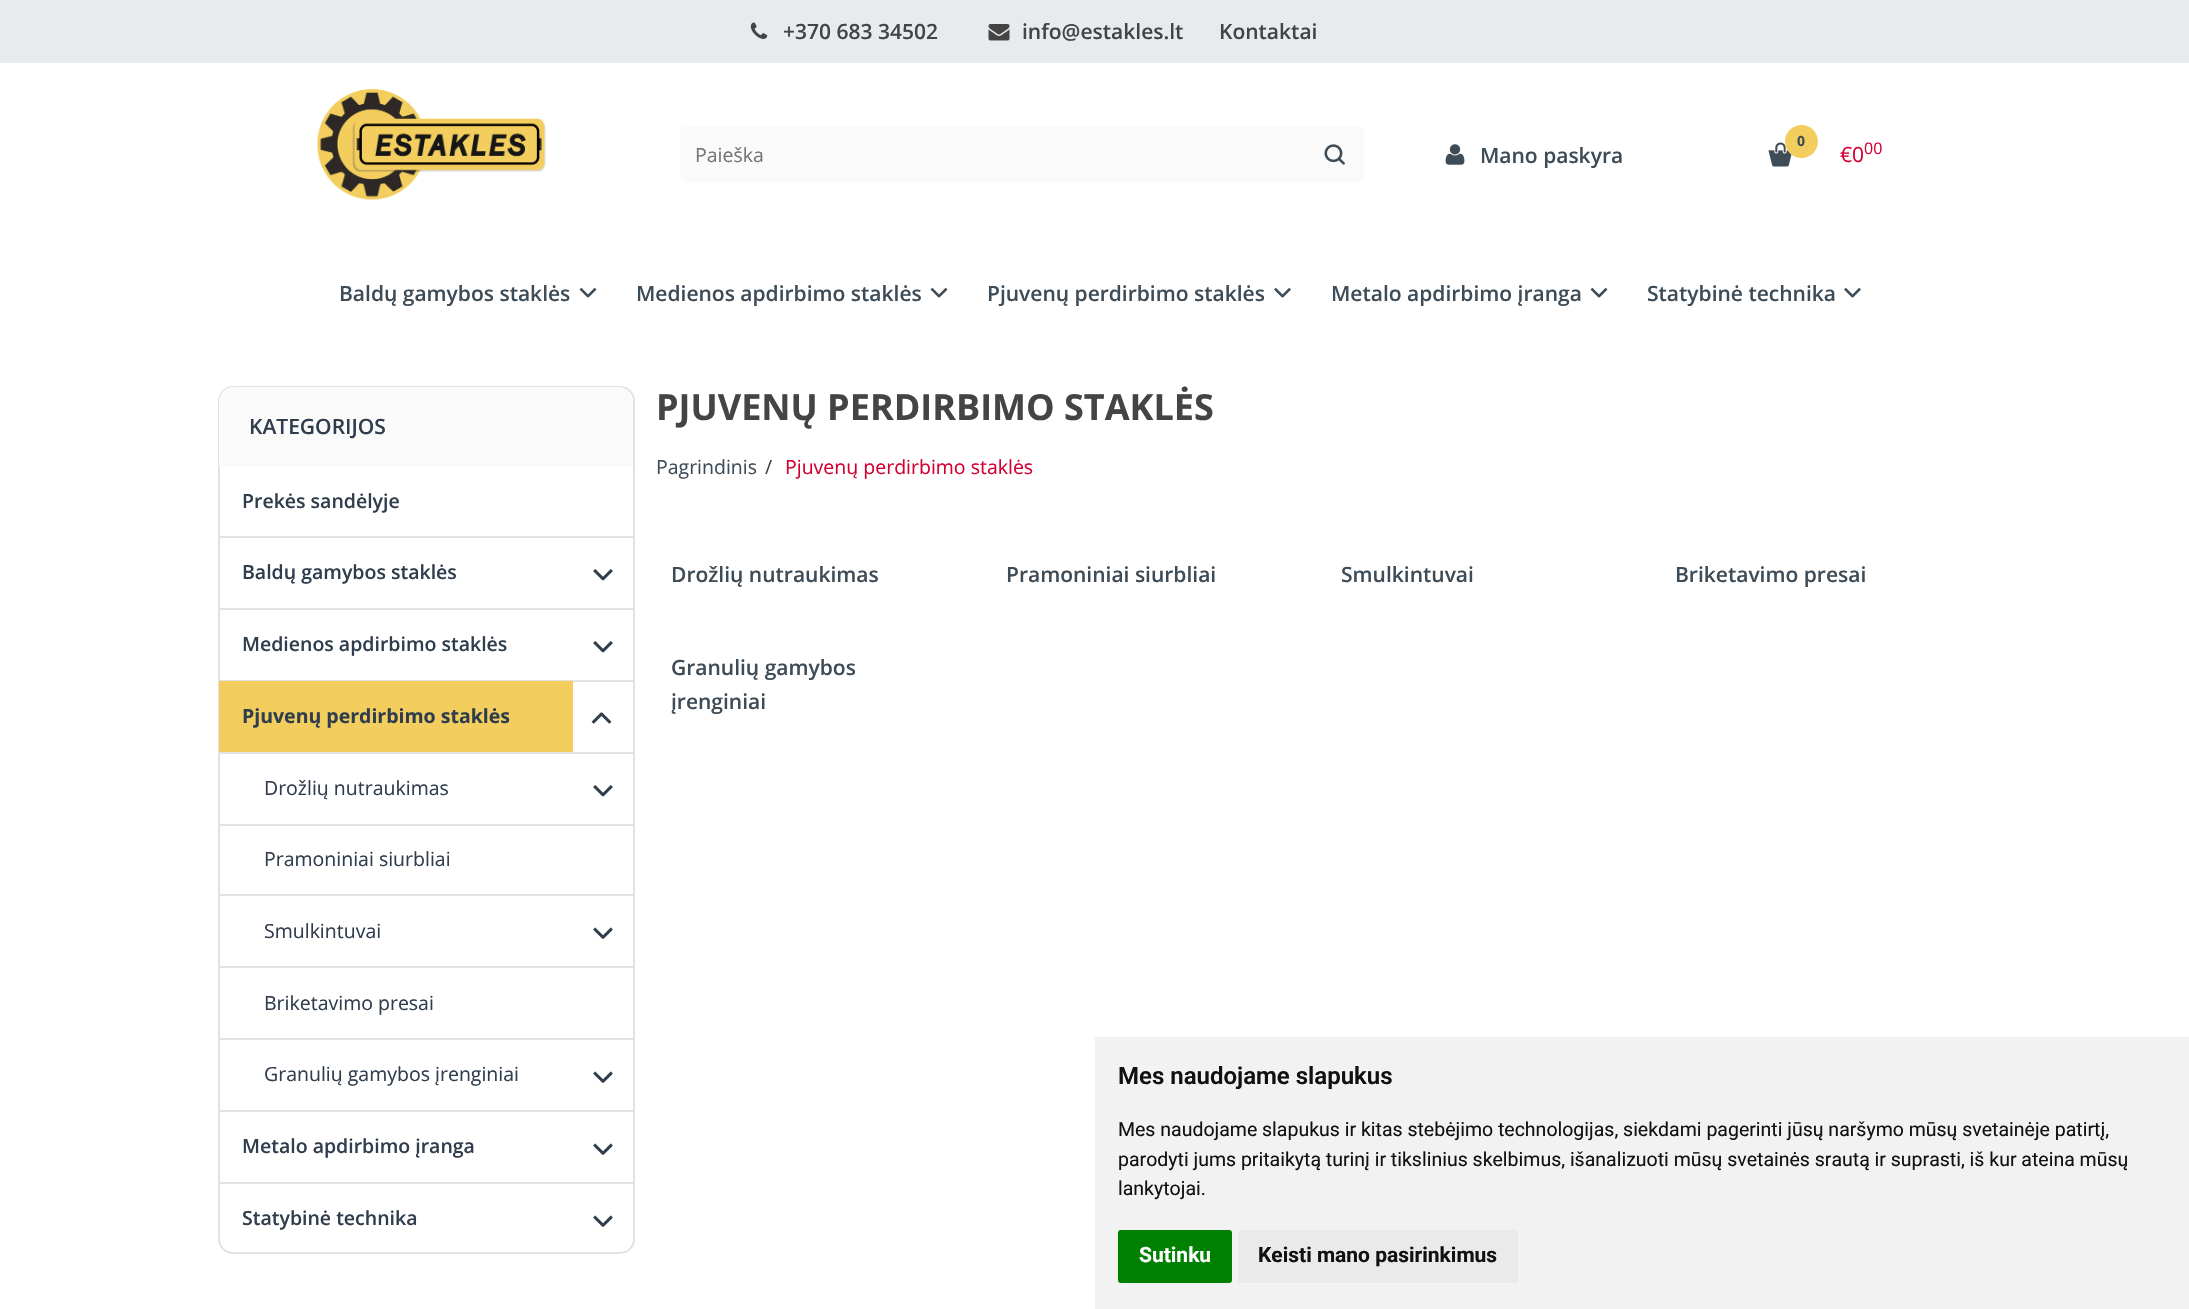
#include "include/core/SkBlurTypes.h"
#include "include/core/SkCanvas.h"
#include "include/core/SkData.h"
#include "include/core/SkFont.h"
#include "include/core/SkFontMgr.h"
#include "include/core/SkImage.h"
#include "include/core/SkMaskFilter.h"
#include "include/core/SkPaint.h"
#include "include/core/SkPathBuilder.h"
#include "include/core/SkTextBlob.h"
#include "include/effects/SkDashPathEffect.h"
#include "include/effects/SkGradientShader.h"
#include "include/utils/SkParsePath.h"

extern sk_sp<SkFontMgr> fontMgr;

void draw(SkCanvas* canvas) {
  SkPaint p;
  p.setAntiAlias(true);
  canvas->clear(SK_ColorWHITE);
  p.setColor(SkColorSetRGB(231, 235, 238));
  canvas->drawRect(SkRect::MakeLTRB(0, 0, 2189, 63), p);
  canvas->drawImageRect(SkImages::DeferredFromEncodedData(SkData::MakeFromFileName("images/1.png")), SkRect::MakeLTRB(750, 22, 768, 39), SkSamplingOptions());
  canvas->drawImageRect(SkImages::DeferredFromEncodedData(SkData::MakeFromFileName("images/2.png")), SkRect::MakeLTRB(988, 24, 1010, 41), SkSamplingOptions());
  canvas->drawImageRect(SkImages::DeferredFromEncodedData(SkData::MakeFromFileName("images/3.png")), SkRect::MakeLTRB(316, 88, 546, 201), SkSamplingOptions());
  p.setColor(SkColorSetRGB(250, 250, 250));
  canvas->drawRoundRect(SkRect::MakeLTRB(680, 126, 1364, 183), 8, 8, p);
  canvas->drawImageRect(SkImages::DeferredFromEncodedData(SkData::MakeFromFileName("images/4.png")), SkRect::MakeLTRB(1324, 144, 1345, 165), SkSamplingOptions());
  canvas->drawImageRect(SkImages::DeferredFromEncodedData(SkData::MakeFromFileName("images/5.png")), SkRect::MakeLTRB(1445, 144, 1465, 165), SkSamplingOptions());
  canvas->drawImageRect(SkImages::DeferredFromEncodedData(SkData::MakeFromFileName("images/6.png")), SkRect::MakeLTRB(1768, 142, 1792, 167), SkSamplingOptions());
  p.setColor(SkColorSetRGB(243, 206, 94));
  canvas->drawCircle(1801.5f, 141.5f, 16.5f, p);
  canvas->drawImageRect(SkImages::DeferredFromEncodedData(SkData::MakeFromFileName("images/7.png")), SkRect::MakeLTRB(579, 287, 597, 298), SkSamplingOptions());
  canvas->drawImageRect(SkImages::DeferredFromEncodedData(SkData::MakeFromFileName("images/7.png")), SkRect::MakeLTRB(930, 287, 948, 298), SkSamplingOptions());
  canvas->drawImageRect(SkImages::DeferredFromEncodedData(SkData::MakeFromFileName("images/8.png")), SkRect::MakeLTRB(1274, 287, 1291, 298), SkSamplingOptions());
  canvas->drawImageRect(SkImages::DeferredFromEncodedData(SkData::MakeFromFileName("images/7.png")), SkRect::MakeLTRB(1590, 287, 1608, 298), SkSamplingOptions());
  canvas->drawImageRect(SkImages::DeferredFromEncodedData(SkData::MakeFromFileName("images/8.png")), SkRect::MakeLTRB(1844, 287, 1861, 298), SkSamplingOptions());
  p.setStyle(SkPaint::kStroke_Style);
  p.setStrokeWidth(2);
  p.setColor(SkColorSetRGB(226, 226, 226));
  canvas->drawRoundRect(SkRect::MakeLTRB(219, 387, 634, 1253), 14, 14, p);
  p.setStyle(SkPaint::kFill_Style);
  p.setColor(SkColorSetRGB(250, 250, 250));
  canvas->drawPath(SkPathBuilder().moveTo(233, 387).lineTo(619, 387).cubicTo(626.5f, 387, 633, 393.5f, 633, 401).lineTo(633, 467).lineTo(219, 467).lineTo(219, 401).cubicTo(219, 393.5f, 225.5f, 387, 233, 387).close().detach(), p);
  p.setColor(SkColorSetRGB(226, 226, 226));
  canvas->drawRect(SkRect::MakeLTRB(219, 536, 633, 538), p);
  canvas->drawRect(SkRect::MakeLTRB(219, 608, 633, 610), p);
  canvas->drawImageRect(SkImages::DeferredFromEncodedData(SkData::MakeFromFileName("images/9.png")), SkRect::MakeLTRB(593, 569, 613, 581), SkSamplingOptions());
  canvas->drawRect(SkRect::MakeLTRB(219, 680, 633, 682), p);
  canvas->drawImageRect(SkImages::DeferredFromEncodedData(SkData::MakeFromFileName("images/9.png")), SkRect::MakeLTRB(593, 641, 613, 653), SkSamplingOptions());
  canvas->drawRect(SkRect::MakeLTRB(219, 1110, 633, 1112), p);
  p.setColor(SkColorSetRGB(243, 206, 94));
  canvas->drawRect(SkRect::MakeLTRB(219, 681, 573, 752), p);
  canvas->drawImageRect(SkImages::DeferredFromEncodedData(SkData::MakeFromFileName("images/10.png")), SkRect::MakeLTRB(591, 712, 612, 724), SkSamplingOptions());
  p.setColor(SkColorSetRGB(226, 226, 226));
  canvas->drawRect(SkRect::MakeLTRB(219, 752, 633, 754), p);
  canvas->drawRect(SkRect::MakeLTRB(219, 824, 633, 826), p);
  canvas->drawImageRect(SkImages::DeferredFromEncodedData(SkData::MakeFromFileName("images/9.png")), SkRect::MakeLTRB(593, 785, 613, 797), SkSamplingOptions());
  canvas->drawRect(SkRect::MakeLTRB(219, 894, 633, 896), p);
  canvas->drawRect(SkRect::MakeLTRB(219, 966, 633, 968), p);
  canvas->drawImageRect(SkImages::DeferredFromEncodedData(SkData::MakeFromFileName("images/11.png")), SkRect::MakeLTRB(593, 927, 613, 939), SkSamplingOptions());
  canvas->drawRect(SkRect::MakeLTRB(219, 1038, 633, 1040), p);
  canvas->drawImageRect(SkImages::DeferredFromEncodedData(SkData::MakeFromFileName("images/11.png")), SkRect::MakeLTRB(593, 1071, 613, 1083), SkSamplingOptions());
  canvas->drawRect(SkRect::MakeLTRB(219, 1182, 633, 1184), p);
  canvas->drawImageRect(SkImages::DeferredFromEncodedData(SkData::MakeFromFileName("images/11.png")), SkRect::MakeLTRB(593, 1143, 613, 1155), SkSamplingOptions());
  canvas->drawImageRect(SkImages::DeferredFromEncodedData(SkData::MakeFromFileName("images/11.png")), SkRect::MakeLTRB(593, 1215, 613, 1227), SkSamplingOptions());
  p.setColor(SkColorSetRGB(242, 242, 242));
  canvas->drawRect(SkRect::MakeLTRB(1095, 1037, 2189, 1309), p);
  p.setColor(SkColorSetRGB(0, 128, 0));
  canvas->drawRoundRect(SkRect::MakeLTRB(1118, 1230, 1232, 1283), 3, 3, p);
  p.setColor(SkColorSetRGB(234, 234, 234));
  canvas->drawRoundRect(SkRect::MakeLTRB(1238, 1230, 1518, 1283), 3, 3, p);
  SkFont font1(fontMgr->matchFamilyStyle("Open Sans", SkFontStyle(600, SkFontStyle::kNormal_Width, SkFontStyle::kUpright_Slant)), 21);
  font1.setSubpixel(true);
  p.setColor(SkColorSetRGB(68, 68, 68));
  canvas->drawString("+370 683 34502", 783, 39, font1, p);
  canvas->drawString("info@estakles.lt", 1022, 39, font1, p);
  canvas->drawString("Kontaktai", 1219, 39, font1, p);
  SkFont font2(fontMgr->matchFamilyStyle("Open Sans", SkFontStyle::Normal()), 19.5f);
  font2.setSubpixel(true);
  p.setColor(SkColorSetRGB(117, 117, 117));
  canvas->drawString("Paieška", 695, 162, font2, p);
  p.setColor(SkColorSetRGB(62, 76, 87));
  canvas->drawString("Mano paskyra", 1480, 163, font1, p);
  SkFont font3(fontMgr->matchFamilyStyle("Open Sans", SkFontStyle::Bold()), 14);
  font3.setSubpixel(true);
  canvas->drawString("0", 1797, 146, font3, p);
  SkFont font4(fontMgr->matchFamilyStyle("Open Sans", SkFontStyle::Normal()), 21);
  font4.setSubpixel(true);
  p.setColor(SkColorSetRGB(213, 0, 50));
  canvas->drawString("€0", 1840, 162, font4, p);
  SkFont font5(fontMgr->matchFamilyStyle("Open Sans", SkFontStyle::Normal()), 16);
  font5.setSubpixel(true);
  canvas->drawString("00", 1864, 154, font5, p);
  p.setColor(SkColorSetRGB(62, 76, 87));
  canvas->drawString("Baldų gamybos staklės", 339, 301, font1, p);
  canvas->drawString("Medienos apdirbimo staklės", 636, 301, font1, p);
  canvas->drawString("Pjuvenų perdirbimo staklės", 987, 301, font1, p);
  canvas->drawString("Metalo apdirbimo įranga", 1331, 301, font1, p);
  canvas->drawString("Statybinė technika", 1647, 301, font1, p);
  p.setColor(SkColorSetRGB(48, 61, 77));
  canvas->drawString("KATEGORIJOS", 249, 434, font1, p);
  SkFont font6(fontMgr->matchFamilyStyle("Open Sans", SkFontStyle(600, SkFontStyle::kNormal_Width, SkFontStyle::kUpright_Slant)), 19.5f);
  font6.setSubpixel(true);
  canvas->drawString("Prekės sandėlyje", 242, 508, font6, p);
  canvas->drawString("Baldų gamybos staklės", 242, 579, font6, p);
  canvas->drawString("Medienos apdirbimo staklės", 242, 651, font6, p);
  SkFont font7(fontMgr->matchFamilyStyle("Open Sans", SkFontStyle::Bold()), 19.5f);
  font7.setSubpixel(true);
  canvas->drawString("Pjuvenų perdirbimo staklės", 242, 723, font7, p);
  canvas->drawString("Drožlių nutraukimas", 264, 795, font2, p);
  canvas->drawString("Pramoniniai siurbliai", 264, 866, font2, p);
  canvas->drawString("Smulkintuvai", 264, 938, font2, p);
  canvas->drawString("Briketavimo presai", 264, 1010, font2, p);
  canvas->drawString("Granulių gamybos įrenginiai", 264, 1081, font2, p);
  canvas->drawString("Metalo apdirbimo įranga", 242, 1153, font6, p);
  canvas->drawString("Statybinė technika", 242, 1225, font6, p);
  SkFont font8(fontMgr->matchFamilyStyle("Open Sans", SkFontStyle::Bold()), 36);
  font8.setSubpixel(true);
  p.setColor(SkColorSetRGB(68, 68, 68));
  canvas->drawString("PJUVENŲ PERDIRBIMO STAKLĖS", 656, 420, font8, p);
  p.setColor(SkColorSetRGB(62, 76, 87));
  canvas->drawString("Pagrindinis", 656, 474, font2, p);
  p.setColor(SkColorSetRGB(68, 68, 68));
  canvas->drawString("/", 765, 474, font2, p);
  p.setColor(SkColorSetRGB(213, 0, 50));
  canvas->drawString("Pjuvenų perdirbimo staklės", 785, 474, font2, p);
  p.setColor(SkColorSetRGB(62, 76, 87));
  canvas->drawString("Drožlių nutraukimas", 671, 582, font1, p);
  canvas->drawString("Pramoniniai siurbliai", 1006, 582, font1, p);
  canvas->drawString("Smulkintuvai", 1341, 582, font1, p);
  canvas->drawString("Briketavimo presai", 1675, 582, font1, p);
  canvas->drawString("Granulių gamybos", 671, 675, font1, p);
  canvas->drawString("įrenginiai", 671, 709, font1, p);
  SkFont font9(fontMgr->matchFamilyStyle("Roboto", SkFontStyle(600, SkFontStyle::kNormal_Width, SkFontStyle::kUpright_Slant)), 24);
  font9.setSubpixel(true);
  p.setColor(SkColorSetRGB(17, 17, 17));
  canvas->drawString("Mes naudojame slapukus", 1118, 1084, font9, p);
  SkFont font10(fontMgr->matchFamilyStyle("Roboto", SkFontStyle::Normal()), 19.5f);
  font10.setSubpixel(true);
  canvas->drawString("Mes naudojame slapukus ir kitas stebėjimo technologijas, siekdami pagerinti jūsų naršymo mūsų svetainėje patirtį,", 1118, 1136, font10, p);
  canvas->drawString("parodyti jums pritaikytą turinį ir tikslinius skelbimus, išanalizuoti mūsų svetainės srautą ir suprasti, iš kur ateina mūsų", 1118, 1166, font10, p);
  canvas->drawString("lankytojai.", 1118, 1195, font10, p);
  SkFont font11(fontMgr->matchFamilyStyle("Roboto", SkFontStyle::Bold()), 21);
  font11.setSubpixel(true);
  p.setColor(SK_ColorWHITE);
  canvas->drawString("Sutinku", 1139, 1262, font11, p);
  p.setColor(SkColorSetRGB(17, 17, 17));
  canvas->drawString("Keisti mano pasirinkimus", 1258, 1262, font11, p);
}
